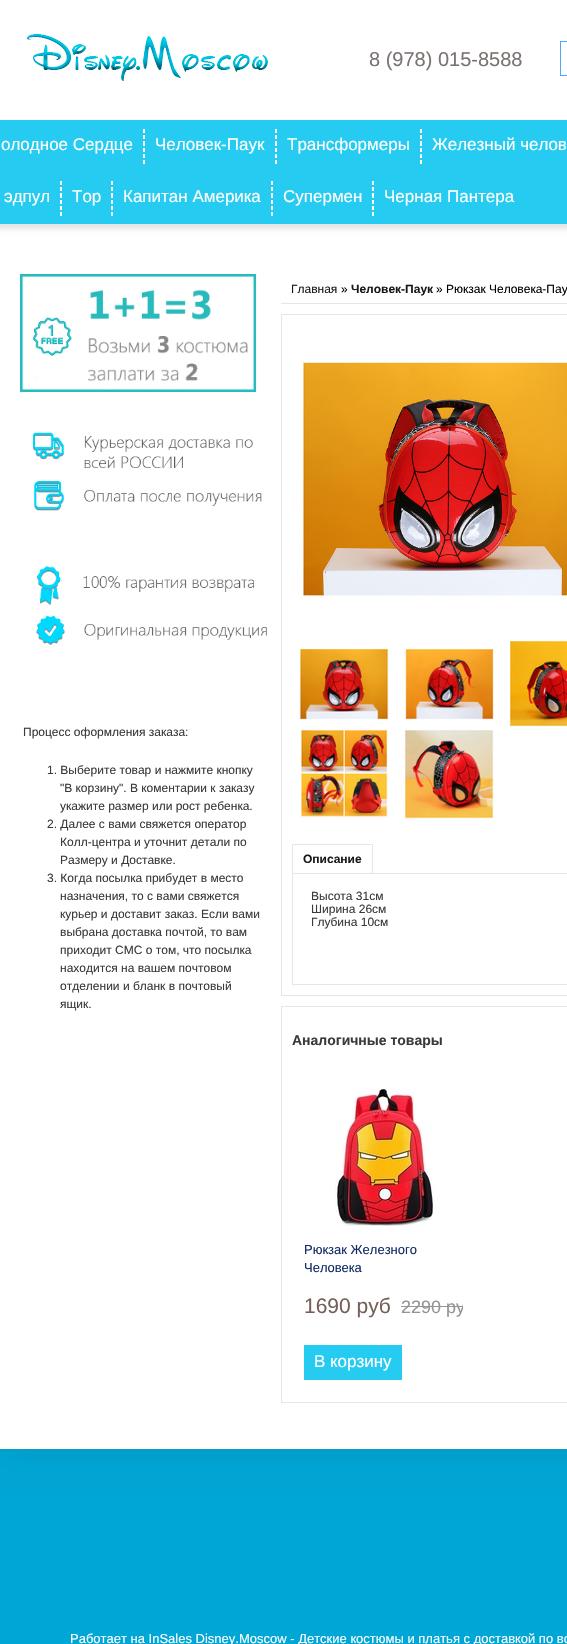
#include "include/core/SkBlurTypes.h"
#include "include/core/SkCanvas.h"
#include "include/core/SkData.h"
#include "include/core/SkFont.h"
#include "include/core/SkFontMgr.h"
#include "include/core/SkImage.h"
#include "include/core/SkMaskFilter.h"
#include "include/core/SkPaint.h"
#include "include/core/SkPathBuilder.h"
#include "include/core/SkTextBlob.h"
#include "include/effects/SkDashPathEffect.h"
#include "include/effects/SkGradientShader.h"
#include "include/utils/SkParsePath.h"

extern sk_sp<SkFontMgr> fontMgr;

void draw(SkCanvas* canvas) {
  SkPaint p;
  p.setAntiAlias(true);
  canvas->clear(SkColorSetRGB(0, 166, 213));
  p.setColor(SkColorSetARGB(26, 0, 0, 0));
  p.setMaskFilter(SkMaskFilter::MakeBlur(kNormal_SkBlurStyle, 16));
  canvas->drawRect(SkRect::MakeLTRB(0, -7, 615, 1449), p);
  p.setMaskFilter(nullptr);
  p.setColor(SK_ColorWHITE);
  canvas->drawRect(SkRect::MakeLTRB(0, 0, 567, 1449), p);
  canvas->drawImageRect(SkImages::DeferredFromEncodedData(SkData::MakeFromFileName("images/1.png")), SkRect::MakeLTRB(27, 34, 268, 81), SkSamplingOptions());
  p.setColor(SkColorSetRGB(77, 166, 255));
  canvas->drawRect(SkRect::MakeLTRB(560, 41, 567, 42), p);
  canvas->drawRect(SkRect::MakeLTRB(560, 75, 567, 76), p);
  canvas->drawRect(SkRect::MakeLTRB(560, 41, 561, 76), p);
  p.setColor(SkColorSetARGB(28, 0, 0, 0));
  p.setMaskFilter(SkMaskFilter::MakeBlur(kNormal_SkBlurStyle, 2.5f));
  canvas->drawRect(SkRect::MakeLTRB(-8, 125, 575, 229), p);
  p.setMaskFilter(nullptr);
  p.setColor(SkColorSetRGB(37, 203, 240));
  canvas->drawRect(SkRect::MakeLTRB(0, 120, 567, 224), p);
  canvas->drawImageRect(SkImages::DeferredFromEncodedData(SkData::MakeFromFileName("images/2.png")), SkRect::MakeLTRB(143, 129, 145, 164), SkSamplingOptions());
  canvas->drawImageRect(SkImages::DeferredFromEncodedData(SkData::MakeFromFileName("images/2.png")), SkRect::MakeLTRB(275, 129, 277, 164), SkSamplingOptions());
  canvas->drawImageRect(SkImages::DeferredFromEncodedData(SkData::MakeFromFileName("images/2.png")), SkRect::MakeLTRB(420, 129, 422, 164), SkSamplingOptions());
  canvas->drawImageRect(SkImages::DeferredFromEncodedData(SkData::MakeFromFileName("images/2.png")), SkRect::MakeLTRB(60, 181, 62, 216), SkSamplingOptions());
  canvas->drawImageRect(SkImages::DeferredFromEncodedData(SkData::MakeFromFileName("images/2.png")), SkRect::MakeLTRB(111, 181, 113, 216), SkSamplingOptions());
  canvas->drawImageRect(SkImages::DeferredFromEncodedData(SkData::MakeFromFileName("images/2.png")), SkRect::MakeLTRB(271, 181, 273, 216), SkSamplingOptions());
  canvas->drawImageRect(SkImages::DeferredFromEncodedData(SkData::MakeFromFileName("images/2.png")), SkRect::MakeLTRB(372, 181, 374, 216), SkSamplingOptions());
  canvas->drawImageRect(SkImages::DeferredFromEncodedData(SkData::MakeFromFileName("images/3.png")), SkRect::MakeLTRB(20, 274, 257, 392), SkSamplingOptions());
  canvas->drawImageRect(SkImages::DeferredFromEncodedData(SkData::MakeFromFileName("images/4.png")), SkRect::MakeLTRB(33, 432, 262, 511), SkSamplingOptions());
  canvas->drawImageRect(SkImages::DeferredFromEncodedData(SkData::MakeFromFileName("images/5.png")), SkRect::MakeLTRB(36, 566, 268, 645), SkSamplingOptions());
  p.setColor(SkColorSetRGB(232, 229, 228));
  canvas->drawRect(SkRect::MakeLTRB(281, 303, 567, 304), p);
  p.setStyle(SkPaint::kStroke_Style);
  p.setStrokeWidth(1);
  canvas->drawRect(SkRect::MakeLTRB(281.5f, 314.5f, 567.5f, 995.5f), p);
  canvas->drawImageRect(SkImages::DeferredFromEncodedData(SkData::MakeFromFileName("images/6.png")), SkRect::MakeLTRB(300, 359, 567, 599), SkSamplingOptions());
  canvas->drawImageRect(SkImages::DeferredFromEncodedData(SkData::MakeFromFileName("images/7.png")), SkRect::MakeLTRB(299, 648, 389, 720), SkSamplingOptions());
  canvas->drawImageRect(SkImages::DeferredFromEncodedData(SkData::MakeFromFileName("images/8.png")), SkRect::MakeLTRB(404, 648, 494, 720), SkSamplingOptions());
  canvas->drawImageRect(SkImages::DeferredFromEncodedData(SkData::MakeFromFileName("images/9.png")), SkRect::MakeLTRB(509, 640, 567, 727), SkSamplingOptions());
  canvas->drawImageRect(SkImages::DeferredFromEncodedData(SkData::MakeFromFileName("images/10.png")), SkRect::MakeLTRB(300, 729, 388, 819), SkSamplingOptions());
  canvas->drawImageRect(SkImages::DeferredFromEncodedData(SkData::MakeFromFileName("images/11.png")), SkRect::MakeLTRB(404, 729, 494, 819), SkSamplingOptions());
  p.setStyle(SkPaint::kFill_Style);
  canvas->drawRect(SkRect::MakeLTRB(292, 844, 373, 845), p);
  canvas->drawRect(SkRect::MakeLTRB(372, 844, 373, 874), p);
  canvas->drawRect(SkRect::MakeLTRB(292, 844, 293, 874), p);
  p.setStyle(SkPaint::kStroke_Style);
  canvas->drawRect(SkRect::MakeLTRB(292.5f, 873.5f, 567.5f, 984.5f), p);
  canvas->drawRect(SkRect::MakeLTRB(281.5f, 1006.5f, 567.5f, 1402.5f), p);
  canvas->drawImageRect(SkImages::DeferredFromEncodedData(SkData::MakeFromFileName("images/12.png")), SkRect::MakeLTRB(334, 1089, 435, 1233), SkSamplingOptions());
  p.setStyle(SkPaint::kFill_Style);
  p.setColor(SkColorSetRGB(148, 148, 148));
  canvas->drawRect(SkRect::MakeLTRB(401, 1306, 463, 1307), p);
  p.setColor(SkColorSetRGB(37, 203, 240));
  canvas->drawRect(SkRect::MakeLTRB(304, 1345, 402, 1380), p);
  SkFont font1(fontMgr->matchFamilyStyle("Liberation Sans", SkFontStyle::Normal()), 20);
  font1.setSubpixel(true);
  p.setColor(SkColorSetRGB(122, 115, 113));
  canvas->drawString("8 (978) 015-8588", 369, 66, font1, p);
  SkFont font2(fontMgr->matchFamilyStyle("Liberation Sans", SkFontStyle::Normal()), 17);
  font2.setSubpixel(true);
  p.setColor(SK_ColorWHITE);
  canvas->drawString("олодное Сердце", 1, 150, font2, p);
  canvas->drawString("Человек-Паук", 155, 150, font2, p);
  canvas->drawString("Трансформеры", 287, 150, font2, p);
  canvas->drawString("Железный челов", 432, 150, font2, p);
  canvas->drawString("эдпул", 4, 202, font2, p);
  canvas->drawString("Тор", 72, 202, font2, p);
  canvas->drawString("Капитан Америка", 123, 202, font2, p);
  canvas->drawString("Супермен", 283, 202, font2, p);
  canvas->drawString("Черная Пантера", 384, 202, font2, p);
  SkFont font3(fontMgr->matchFamilyStyle("Liberation Sans", SkFontStyle::Normal()), 12);
  font3.setSubpixel(true);
  p.setColor(SkColorSetRGB(61, 57, 57));
  canvas->drawString("Процесс оформления заказа:", 23, 736, font3, p);
  canvas->drawString("1. Выберите товар и нажмите кнопку", 47, 774, font3, p);
  canvas->drawString("\"В корзину\". В коментарии к заказу", 60, 792, font3, p);
  canvas->drawString("укажите размер или рост ребенка.", 60, 810, font3, p);
  canvas->drawString("2. Далее с вами свяжется оператор", 47, 828, font3, p);
  canvas->drawString("Колл-центра и уточнит детали по", 60, 846, font3, p);
  canvas->drawString("Размеру и Доставке.", 60, 864, font3, p);
  canvas->drawString("3. Когда посылка прибудет в место", 47, 882, font3, p);
  canvas->drawString("назначения, то с вами свяжется", 60, 900, font3, p);
  canvas->drawString("курьер и доставит заказ. Если вами", 60, 918, font3, p);
  canvas->drawString("выбрана доставка почтой, то вам", 60, 936, font3, p);
  canvas->drawString("приходит СМС о том, что посылка", 60, 954, font3, p);
  canvas->drawString("находится на вашем почтовом", 60, 972, font3, p);
  canvas->drawString("отделении и бланк в почтовый", 60, 990, font3, p);
  canvas->drawString("ящик.", 60, 1008, font3, p);
  p.setColor(SkColorSetRGB(25, 25, 25));
  canvas->drawString("Главная", 291, 293, font3, p);
  p.setColor(SK_ColorBLACK);
  canvas->drawString("»", 341, 293, font3, p);
  SkFont font4(fontMgr->matchFamilyStyle("Liberation Sans", SkFontStyle::Bold()), 12);
  font4.setSubpixel(true);
  p.setColor(SkColorSetRGB(25, 25, 25));
  canvas->drawString("Человек-Паук", 351, 293, font4, p);
  p.setColor(SK_ColorBLACK);
  canvas->drawString("» Рюкзак Человека-Пау", 436, 293, font3, p);
  p.setColor(SkColorSetRGB(25, 25, 25));
  canvas->drawString("Описание", 303, 863, font4, p);
  p.setColor(SkColorSetRGB(61, 57, 57));
  canvas->drawString("Высота 31см", 311, 900, font3, p);
  canvas->drawString("Ширина 26см", 311, 913, font3, p);
  canvas->drawString("Глубина 10см", 311, 926, font3, p);
  SkFont font5(fontMgr->matchFamilyStyle("Liberation Sans", SkFontStyle::Bold()), 14);
  font5.setSubpixel(true);
  canvas->drawString("Аналогичные товары", 292, 1045, font5, p);
  SkFont font6(fontMgr->matchFamilyStyle("Liberation Sans", SkFontStyle::Normal()), 13);
  font6.setSubpixel(true);
  p.setColor(SkColorSetRGB(17, 44, 99));
  canvas->drawString("Рюкзак Железного", 304, 1254, font6, p);
  canvas->drawString("Человека", 304, 1272, font6, p);
  SkFont font7(fontMgr->matchFamilyStyle("Liberation Sans", SkFontStyle::Normal()), 21);
  font7.setSubpixel(true);
  p.setColor(SkColorSetRGB(118, 95, 89));
  canvas->drawString("1690 руб", 304, 1313, font7, p);
  canvas->save();
  canvas->clipRect(SkRect::MakeLTRB(304, 1293, 463, 1345));
  SkFont font8(fontMgr->matchFamilyStyle("Liberation Sans", SkFontStyle::Normal()), 18);
  font8.setSubpixel(true);
  p.setColor(SkColorSetRGB(148, 148, 148));
  canvas->drawString("2290 ру", 401, 1313, font8, p);
  canvas->restore();
  p.setColor(SK_ColorWHITE);
  canvas->drawString("В корзину", 314, 1367, font2, p);
  canvas->drawString("Работает на InSales Disney.Moscow - Детские костюмы и платья с доставкой по вс", 70, 1643, font6, p);
}
